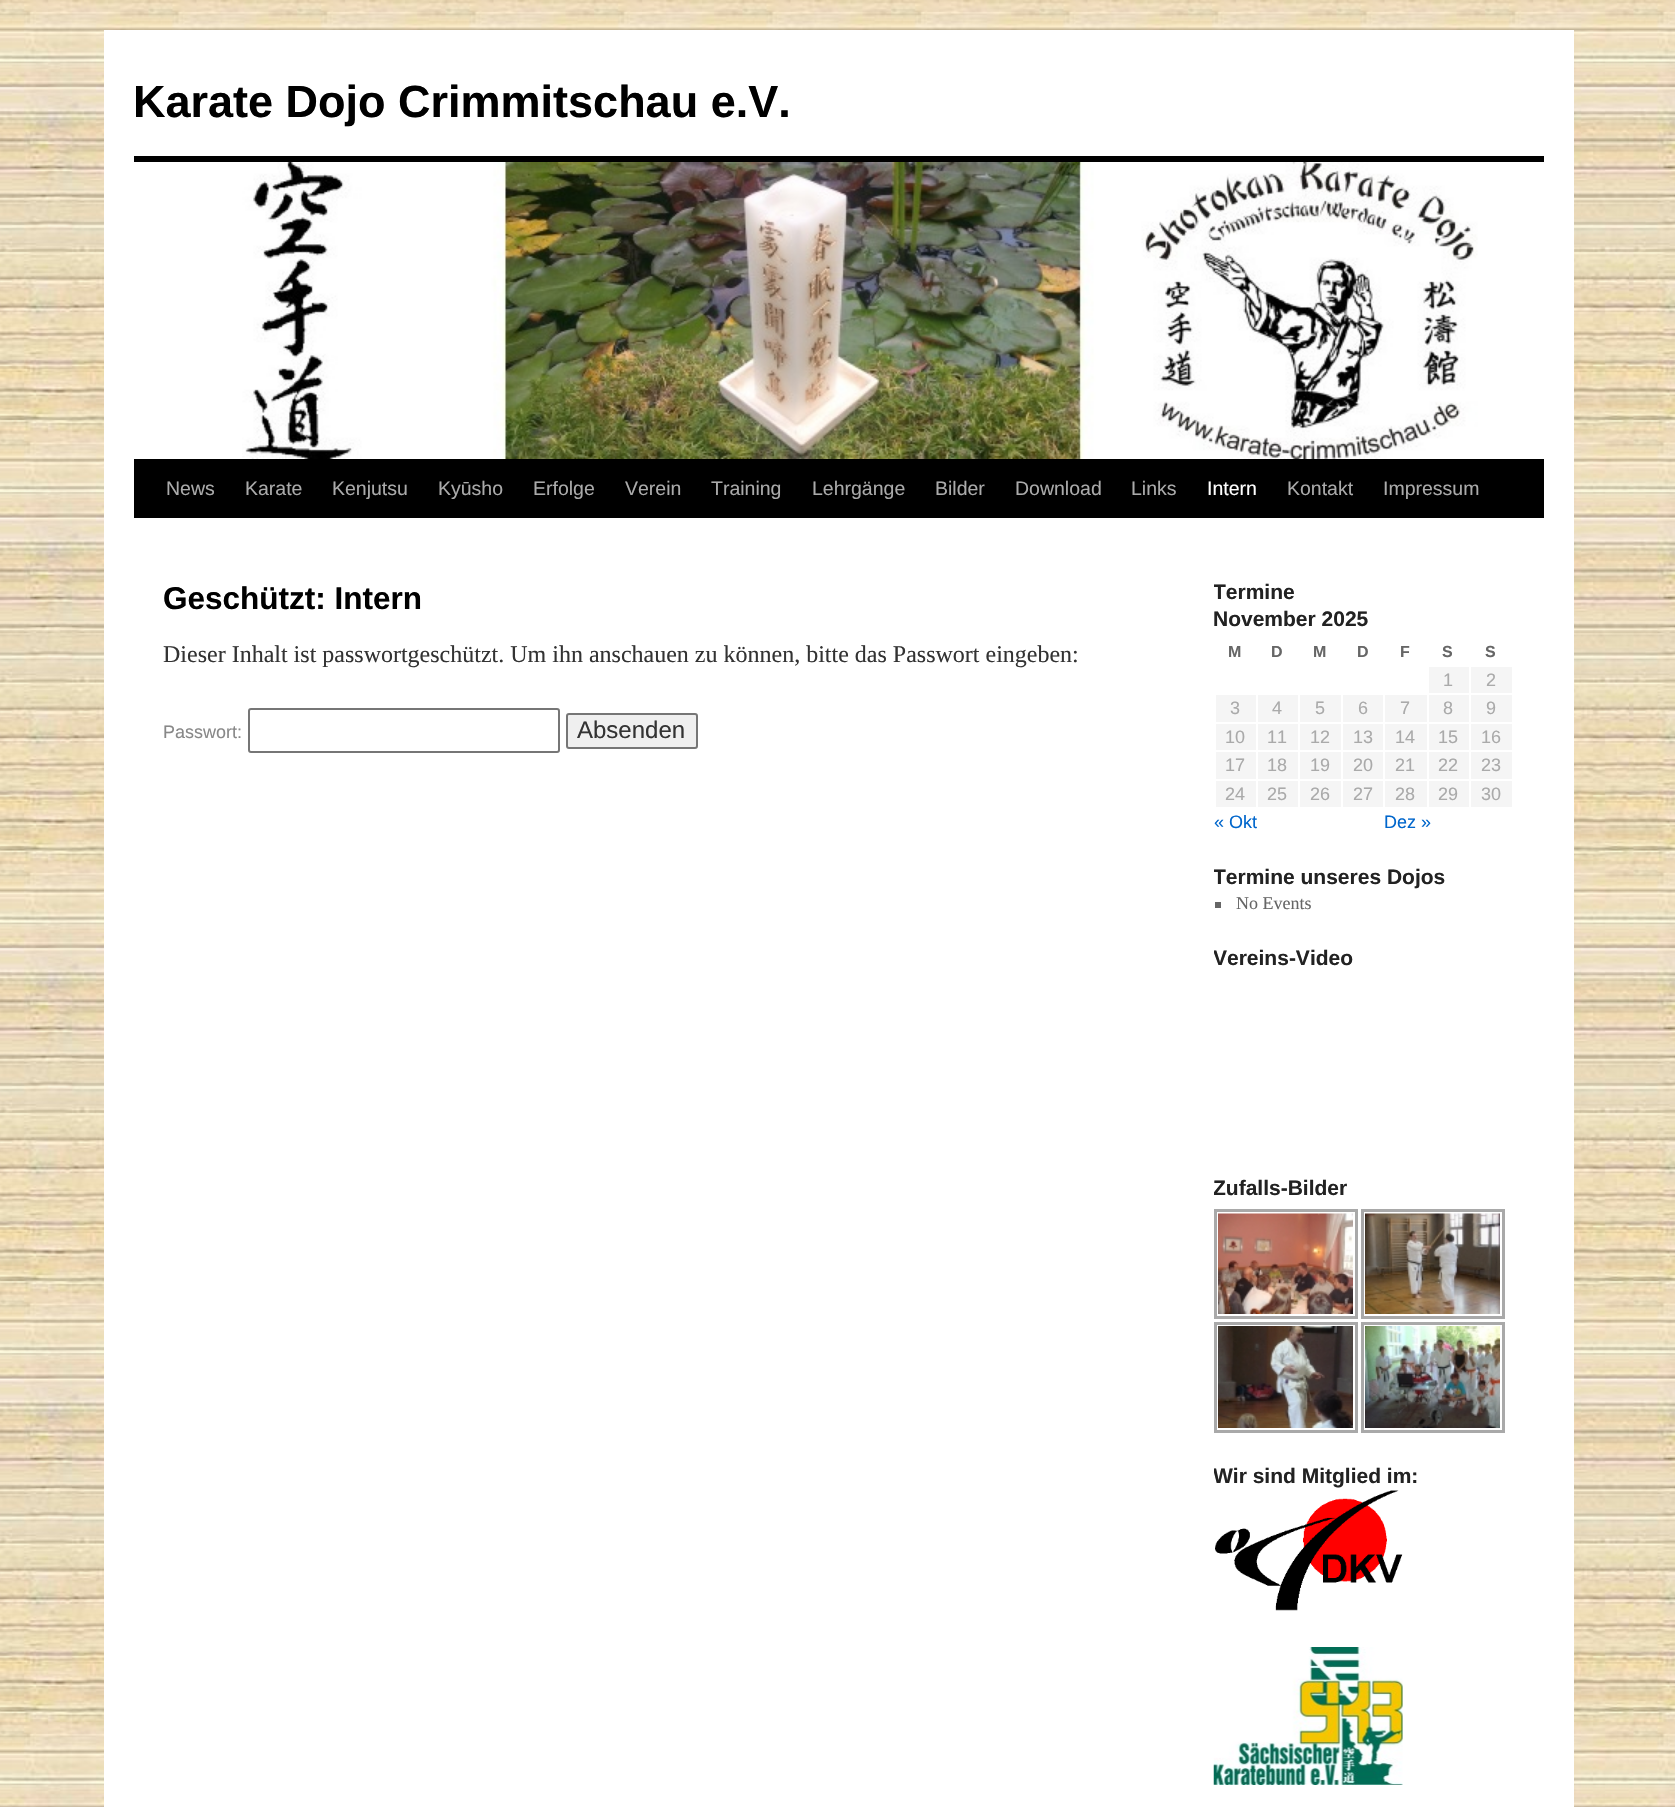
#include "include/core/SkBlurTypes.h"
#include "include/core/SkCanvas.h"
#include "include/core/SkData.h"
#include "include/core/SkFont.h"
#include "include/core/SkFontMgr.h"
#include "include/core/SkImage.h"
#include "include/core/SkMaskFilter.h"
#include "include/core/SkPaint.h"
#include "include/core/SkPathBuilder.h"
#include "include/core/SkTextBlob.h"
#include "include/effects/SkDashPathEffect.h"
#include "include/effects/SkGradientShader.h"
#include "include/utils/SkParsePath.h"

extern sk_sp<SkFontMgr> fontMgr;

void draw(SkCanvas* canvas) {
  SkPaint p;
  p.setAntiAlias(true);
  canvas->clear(SK_ColorWHITE);
  canvas->drawImageRect(SkImages::DeferredFromEncodedData(SkData::MakeFromFileName("images/1.png")), SkRect::MakeLTRB(0, 0, 1675, 1807), SkSamplingOptions());
  p.setColor(SK_ColorWHITE);
  canvas->drawRect(SkRect::MakeLTRB(104, 30, 1574, 1807), p);
  p.setColor(SK_ColorBLACK);
  canvas->drawRect(SkRect::MakeLTRB(134, 156, 1544, 162), p);
  canvas->drawRect(SkRect::MakeLTRB(134, 459, 1544, 518), p);
  canvas->drawImageRect(SkImages::DeferredFromEncodedData(SkData::MakeFromFileName("images/2.png")), SkRect::MakeLTRB(242, 162, 1478, 459), SkSamplingOptions());
  p.setStyle(SkPaint::kStroke_Style);
  p.setStrokeWidth(2);
  p.setColor(SkColorSetRGB(118, 118, 118));
  canvas->drawRoundRect(SkRect::MakeLTRB(249, 709, 559, 752), 2, 2, p);
  p.setStyle(SkPaint::kFill_Style);
  p.setColor(SkColorSetRGB(239, 239, 239));
  canvas->drawRoundRect(SkRect::MakeLTRB(567, 714, 697, 748), 2, 2, p);
  p.setStyle(SkPaint::kStroke_Style);
  p.setColor(SkColorSetRGB(118, 118, 118));
  canvas->drawRoundRect(SkRect::MakeLTRB(567, 714, 697, 748), 2, 2, p);
  p.setStyle(SkPaint::kFill_Style);
  p.setColor(SkColorSetRGB(245, 245, 245));
  canvas->drawRect(SkRect::MakeLTRB(1429, 667, 1469, 693), p);
  canvas->drawRect(SkRect::MakeLTRB(1471, 667, 1512, 693), p);
  canvas->drawRect(SkRect::MakeLTRB(1216, 695, 1256, 722), p);
  canvas->drawRect(SkRect::MakeLTRB(1258, 695, 1298, 722), p);
  canvas->drawRect(SkRect::MakeLTRB(1300, 695, 1341, 722), p);
  canvas->drawRect(SkRect::MakeLTRB(1343, 695, 1383, 722), p);
  canvas->drawRect(SkRect::MakeLTRB(1385, 695, 1427, 722), p);
  canvas->drawRect(SkRect::MakeLTRB(1429, 695, 1469, 722), p);
  canvas->drawRect(SkRect::MakeLTRB(1471, 695, 1512, 722), p);
  canvas->drawRect(SkRect::MakeLTRB(1216, 724, 1256, 750), p);
  canvas->drawRect(SkRect::MakeLTRB(1258, 724, 1298, 750), p);
  canvas->drawRect(SkRect::MakeLTRB(1300, 724, 1341, 750), p);
  canvas->drawRect(SkRect::MakeLTRB(1343, 724, 1383, 750), p);
  canvas->drawRect(SkRect::MakeLTRB(1385, 724, 1427, 750), p);
  canvas->drawRect(SkRect::MakeLTRB(1429, 724, 1469, 750), p);
  canvas->drawRect(SkRect::MakeLTRB(1471, 724, 1512, 750), p);
  canvas->drawRect(SkRect::MakeLTRB(1216, 752, 1256, 779), p);
  canvas->drawRect(SkRect::MakeLTRB(1258, 752, 1298, 779), p);
  canvas->drawRect(SkRect::MakeLTRB(1300, 752, 1341, 779), p);
  canvas->drawRect(SkRect::MakeLTRB(1343, 752, 1383, 779), p);
  canvas->drawRect(SkRect::MakeLTRB(1385, 752, 1427, 779), p);
  canvas->drawRect(SkRect::MakeLTRB(1429, 752, 1469, 779), p);
  canvas->drawRect(SkRect::MakeLTRB(1471, 752, 1512, 779), p);
  canvas->drawRect(SkRect::MakeLTRB(1216, 781, 1256, 807), p);
  canvas->drawRect(SkRect::MakeLTRB(1258, 781, 1298, 807), p);
  canvas->drawRect(SkRect::MakeLTRB(1300, 781, 1341, 807), p);
  canvas->drawRect(SkRect::MakeLTRB(1343, 781, 1383, 807), p);
  canvas->drawRect(SkRect::MakeLTRB(1385, 781, 1427, 807), p);
  canvas->drawRect(SkRect::MakeLTRB(1429, 781, 1469, 807), p);
  canvas->drawRect(SkRect::MakeLTRB(1471, 781, 1512, 807), p);
  p.setColor(SkColorSetRGB(102, 102, 102));
  canvas->drawRect(SkRect::MakeLTRB(1215, 902, 1221, 908), p);
  p.setStyle(SkPaint::kStroke_Style);
  p.setStrokeWidth(3);
  p.setColor(SkColorSetRGB(169, 169, 169));
  canvas->drawRect(SkRect::MakeLTRB(1215.5f, 1210.5f, 1356.5f, 1317.5f), p);
  canvas->drawImageRect(SkImages::DeferredFromEncodedData(SkData::MakeFromFileName("images/3.png")), SkRect::MakeLTRB(1218, 1213, 1353, 1314), SkSamplingOptions());
  canvas->drawRect(SkRect::MakeLTRB(1362.5f, 1210.5f, 1503.5f, 1317.5f), p);
  canvas->drawImageRect(SkImages::DeferredFromEncodedData(SkData::MakeFromFileName("images/4.png")), SkRect::MakeLTRB(1365, 1213, 1500, 1314), SkSamplingOptions());
  canvas->drawRect(SkRect::MakeLTRB(1215.5f, 1323.5f, 1356.5f, 1431.5f), p);
  canvas->drawImageRect(SkImages::DeferredFromEncodedData(SkData::MakeFromFileName("images/5.png")), SkRect::MakeLTRB(1218, 1326, 1353, 1428), SkSamplingOptions());
  canvas->drawRect(SkRect::MakeLTRB(1362.5f, 1323.5f, 1503.5f, 1431.5f), p);
  canvas->drawImageRect(SkImages::DeferredFromEncodedData(SkData::MakeFromFileName("images/6.png")), SkRect::MakeLTRB(1365, 1326, 1500, 1428), SkSamplingOptions());
  canvas->drawImageRect(SkImages::DeferredFromEncodedData(SkData::MakeFromFileName("images/7.png")), SkRect::MakeLTRB(1215, 1490, 1403, 1611), SkSamplingOptions());
  canvas->drawImageRect(SkImages::DeferredFromEncodedData(SkData::MakeFromFileName("images/8.png")), SkRect::MakeLTRB(1213, 1647, 1403, 1785), SkSamplingOptions());
  SkFont font1(fontMgr->matchFamilyStyle("Liberation Sans", SkFontStyle::Bold()), 45);
  font1.setSubpixel(true);
  p.setStyle(SkPaint::kFill_Style);
  p.setColor(SK_ColorBLACK);
  canvas->drawString("Karate Dojo Crimmitschau e.V.", 133, 117, font1, p);
  SkFont font2(fontMgr->matchFamilyStyle("Liberation Sans", SkFontStyle::Normal()), 19.5f);
  font2.setSubpixel(true);
  p.setColor(SkColorSetRGB(170, 170, 170));
  canvas->drawString("News", 166, 495, font2, p);
  canvas->drawString("Karate", 245, 495, font2, p);
  canvas->drawString("Kenjutsu", 332, 495, font2, p);
  canvas->drawString("Kyūsho", 438, 495, font2, p);
  canvas->drawString("Erfolge", 533, 495, font2, p);
  canvas->drawString("Verein", 625, 495, font2, p);
  canvas->drawString("Training", 711, 495, font2, p);
  canvas->drawString("Lehrgänge", 812, 495, font2, p);
  canvas->drawString("Bilder", 935, 495, font2, p);
  canvas->drawString("Download", 1015, 495, font2, p);
  canvas->drawString("Links", 1131, 495, font2, p);
  p.setColor(SK_ColorWHITE);
  canvas->drawString("Intern", 1207, 495, font2, p);
  p.setColor(SkColorSetRGB(170, 170, 170));
  canvas->drawString("Kontakt", 1287, 495, font2, p);
  canvas->drawString("Impressum", 1383, 495, font2, p);
  SkFont font3(fontMgr->matchFamilyStyle("Liberation Sans", SkFontStyle::Bold()), 31.5f);
  font3.setSubpixel(true);
  p.setColor(SK_ColorBLACK);
  canvas->drawString("Geschützt: Intern", 163, 609, font3, p);
  SkFont font4(fontMgr->matchFamilyStyle("Liberation Serif", SkFontStyle::Normal()), 24);
  font4.setSubpixel(true);
  p.setColor(SkColorSetRGB(51, 51, 51));
  canvas->drawString("Dieser Inhalt ist passwortgeschützt. Um ihn anschauen zu können, bitte das Passwort eingeben:", 163, 662, font4, p);
  SkFont font5(fontMgr->matchFamilyStyle("Liberation Sans", SkFontStyle::Normal()), 18);
  font5.setSubpixel(true);
  p.setColor(SkColorSetRGB(136, 136, 136));
  canvas->drawString("Passwort:", 163, 738, font5, p);
  SkFont font6(fontMgr->matchFamilyStyle("Liberation Sans", SkFontStyle::Normal()), 24);
  font6.setSubpixel(true);
  p.setColor(SkColorSetRGB(51, 51, 51));
  canvas->drawString("Absenden", 577, 738, font6, p);
  canvas->save();
  canvas->clipRect(SkRect::MakeLTRB(1214, 578, 1544, 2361));
  SkFont font7(fontMgr->matchFamilyStyle("Liberation Sans", SkFontStyle::Bold()), 21);
  font7.setSubpixel(true);
  p.setColor(SkColorSetRGB(34, 34, 34));
  canvas->drawString("Termine", 1213, 599, font7, p);
  canvas->restore();
  canvas->drawString("November 2025", 1213, 626, font7, p);
  SkFont font8(fontMgr->matchFamilyStyle("Liberation Sans", SkFontStyle::Bold()), 16);
  font8.setSubpixel(true);
  p.setColor(SkColorSetRGB(102, 102, 102));
  canvas->drawString("M", 1228, 657, font8, p);
  canvas->drawString("D", 1271, 657, font8, p);
  canvas->drawString("M", 1313, 657, font8, p);
  canvas->drawString("D", 1357, 657, font8, p);
  canvas->drawString("F", 1400, 657, font8, p);
  canvas->drawString("S", 1442, 657, font8, p);
  canvas->drawString("S", 1485, 657, font8, p);
  p.setColor(SkColorSetRGB(170, 170, 170));
  canvas->drawString("1", 1443, 686, font5, p);
  canvas->drawString("2", 1486, 686, font5, p);
  canvas->drawString("3", 1230, 714, font5, p);
  canvas->drawString("4", 1272, 714, font5, p);
  canvas->drawString("5", 1315, 714, font5, p);
  canvas->drawString("6", 1358, 714, font5, p);
  canvas->drawString("7", 1400, 714, font5, p);
  canvas->drawString("8", 1443, 714, font5, p);
  canvas->drawString("9", 1486, 714, font5, p);
  canvas->drawString("10", 1225, 743, font5, p);
  canvas->drawString("11", 1267, 743, font5, p);
  canvas->drawString("12", 1310, 743, font5, p);
  canvas->drawString("13", 1353, 743, font5, p);
  canvas->drawString("14", 1395, 743, font5, p);
  canvas->drawString("15", 1438, 743, font5, p);
  canvas->drawString("16", 1481, 743, font5, p);
  canvas->drawString("17", 1225, 771, font5, p);
  canvas->drawString("18", 1267, 771, font5, p);
  canvas->drawString("19", 1310, 771, font5, p);
  canvas->drawString("20", 1353, 771, font5, p);
  canvas->drawString("21", 1395, 771, font5, p);
  canvas->drawString("22", 1438, 771, font5, p);
  canvas->drawString("23", 1481, 771, font5, p);
  canvas->drawString("24", 1225, 800, font5, p);
  canvas->drawString("25", 1267, 800, font5, p);
  canvas->drawString("26", 1310, 800, font5, p);
  canvas->drawString("27", 1353, 800, font5, p);
  canvas->drawString("28", 1395, 800, font5, p);
  canvas->drawString("29", 1438, 800, font5, p);
  canvas->drawString("30", 1481, 800, font5, p);
  p.setColor(SkColorSetRGB(0, 102, 204));
  canvas->drawString("« Okt", 1214, 828, font5, p);
  canvas->drawString("Dez »", 1384, 828, font5, p);
  canvas->save();
  canvas->clipRect(SkRect::MakeLTRB(1214, 578, 1544, 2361));
  p.setColor(SkColorSetRGB(34, 34, 34));
  canvas->drawString("Termine unseres Dojos", 1213, 884, font7, p);
  canvas->restore();
  SkFont font9(fontMgr->matchFamilyStyle("Liberation Serif", SkFontStyle::Normal()), 18);
  font9.setSubpixel(true);
  p.setColor(SkColorSetRGB(102, 102, 102));
  canvas->drawString("No Events", 1236, 909, font9, p);
  canvas->save();
  canvas->clipRect(SkRect::MakeLTRB(1214, 578, 1544, 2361));
  p.setColor(SkColorSetRGB(34, 34, 34));
  canvas->drawString("Vereins-Video", 1213, 965, font7, p);
  canvas->drawString("Zufalls-Bilder", 1213, 1195, font7, p);
  canvas->drawString("Wir sind Mitglied im:", 1213, 1483, font7, p);
  canvas->restore();
}
